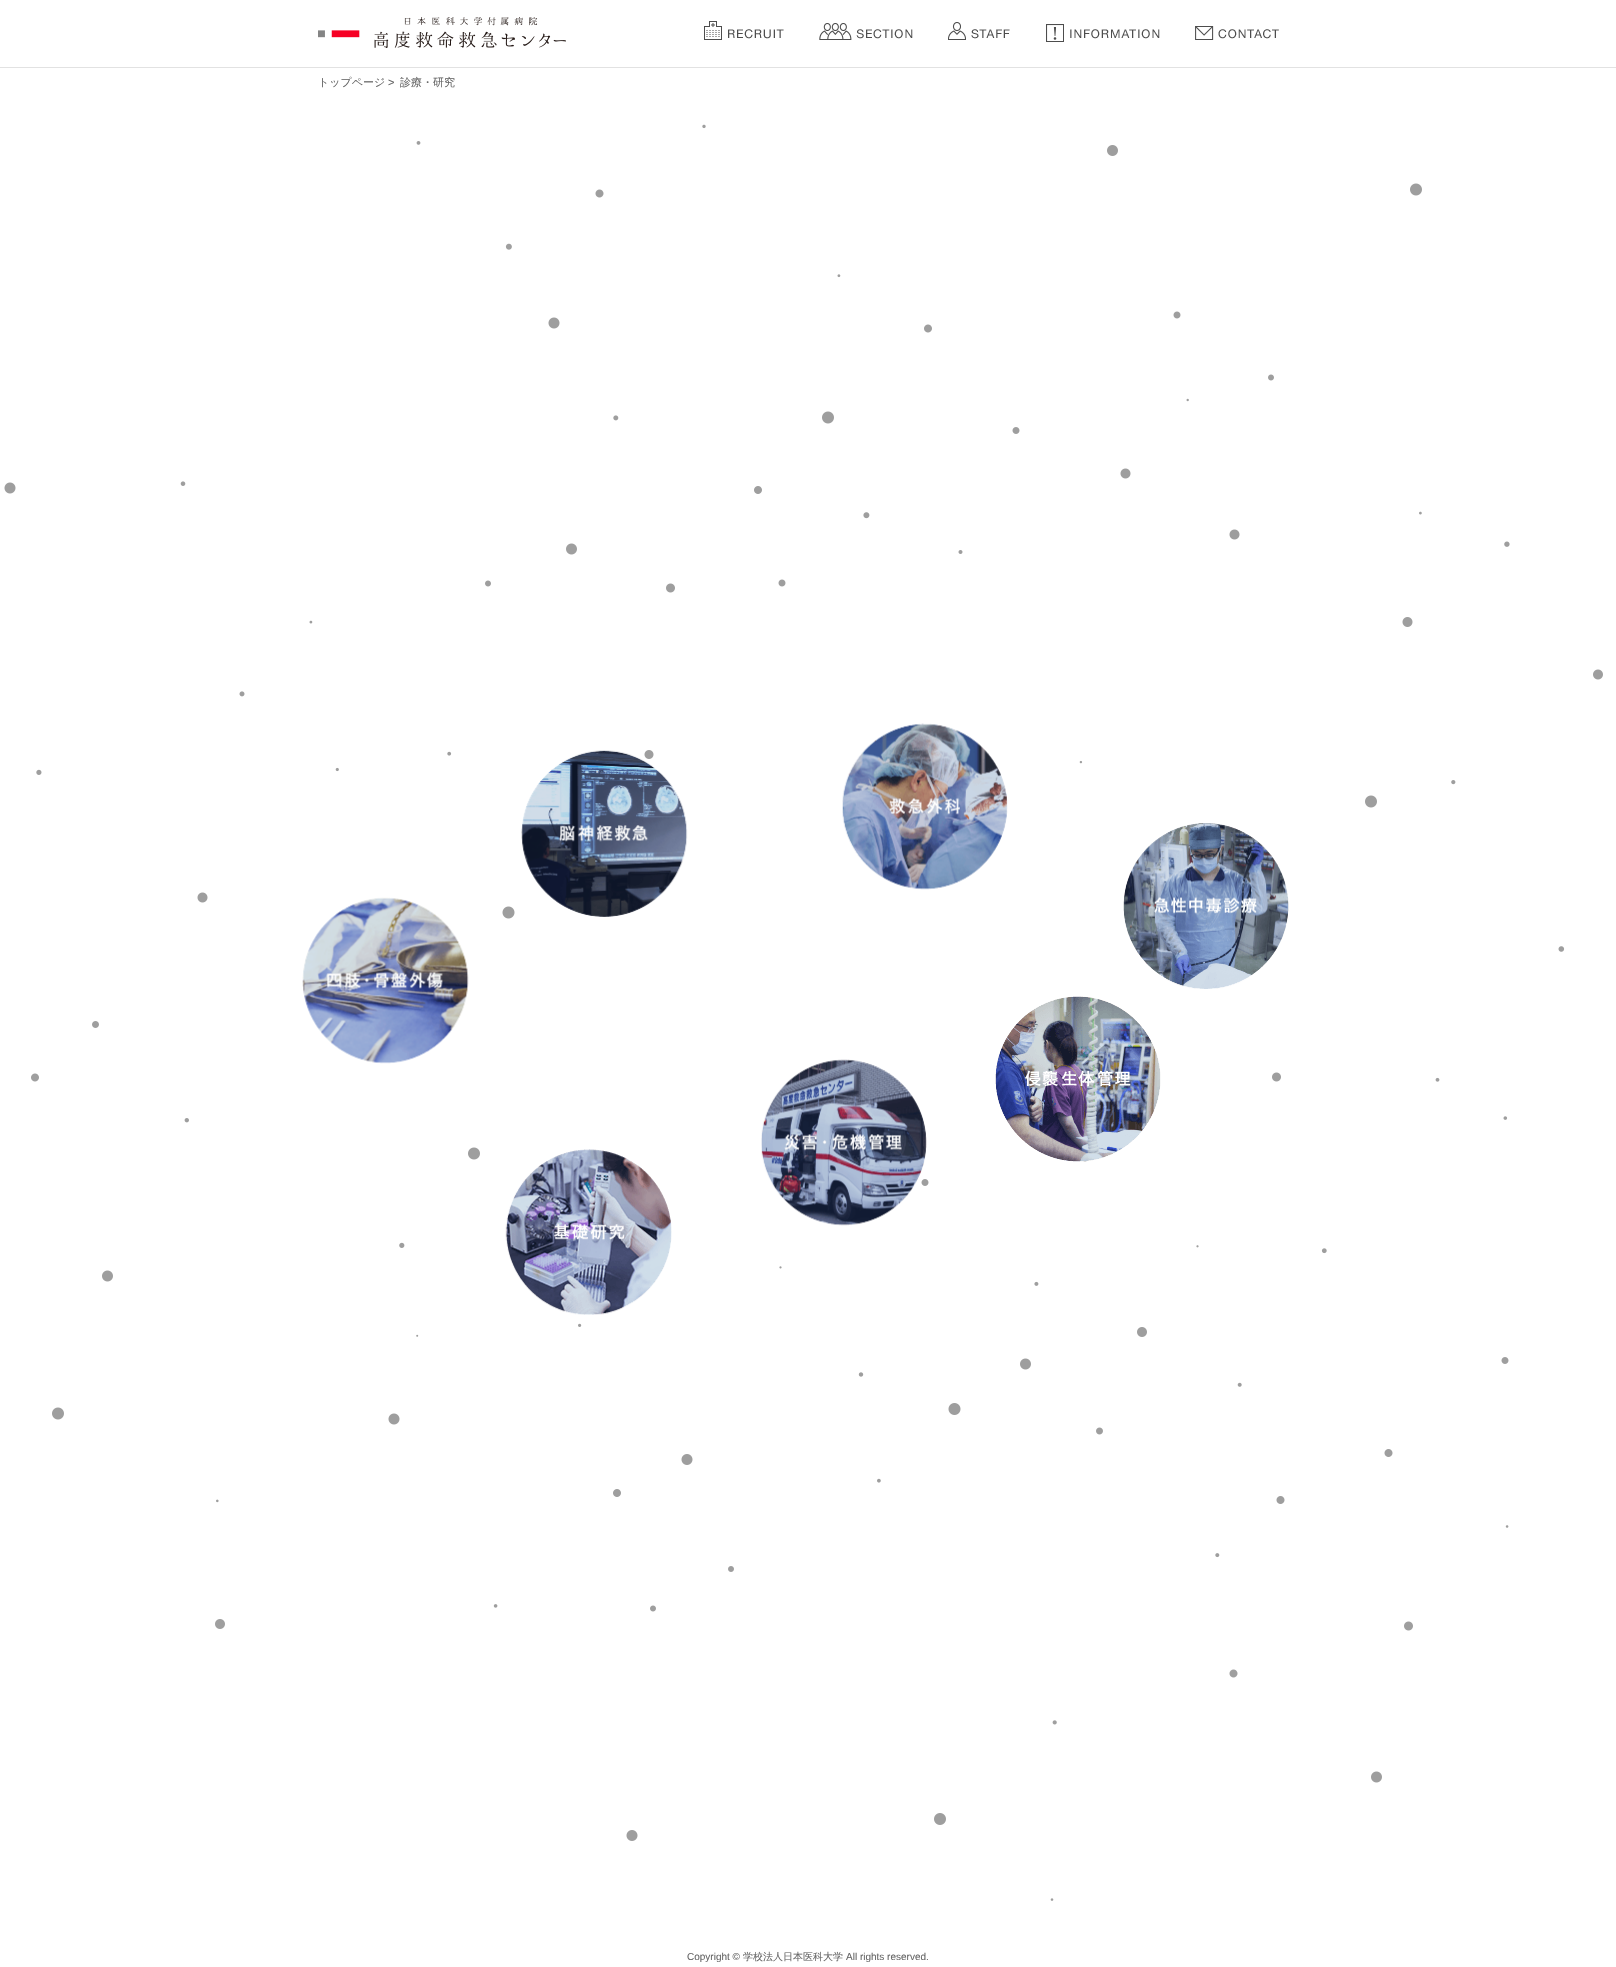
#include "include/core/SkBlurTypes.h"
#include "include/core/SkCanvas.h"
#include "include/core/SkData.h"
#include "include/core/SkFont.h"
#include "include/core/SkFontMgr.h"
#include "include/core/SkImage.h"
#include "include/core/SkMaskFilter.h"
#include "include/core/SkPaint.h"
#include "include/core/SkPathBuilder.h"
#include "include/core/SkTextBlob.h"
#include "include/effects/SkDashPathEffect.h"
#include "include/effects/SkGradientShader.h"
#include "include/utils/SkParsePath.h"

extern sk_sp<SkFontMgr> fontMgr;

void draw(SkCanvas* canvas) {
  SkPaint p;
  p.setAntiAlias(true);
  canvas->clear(SK_ColorWHITE);
  p.setColor(SkColorSetRGB(226, 226, 226));
  canvas->drawRect(SkRect::MakeLTRB(0, 67, 1616, 68), p);
  canvas->drawImageRect(SkImages::DeferredFromEncodedData(SkData::MakeFromFileName("images/1.png")), SkRect::MakeLTRB(318, 17, 566, 48), SkSamplingOptions());
  canvas->drawImageRect(SkImages::DeferredFromEncodedData(SkData::MakeFromFileName("images/2.png")), SkRect::MakeLTRB(704, 21, 784, 40), SkSamplingOptions());
  canvas->drawImageRect(SkImages::DeferredFromEncodedData(SkData::MakeFromFileName("images/3.png")), SkRect::MakeLTRB(819, 23, 913, 40), SkSamplingOptions());
  canvas->drawImageRect(SkImages::DeferredFromEncodedData(SkData::MakeFromFileName("images/4.png")), SkRect::MakeLTRB(948, 22, 1010, 40), SkSamplingOptions());
  canvas->drawImageRect(SkImages::DeferredFromEncodedData(SkData::MakeFromFileName("images/5.png")), SkRect::MakeLTRB(1046, 24, 1160, 42), SkSamplingOptions());
  canvas->drawImageRect(SkImages::DeferredFromEncodedData(SkData::MakeFromFileName("images/6.png")), SkRect::MakeLTRB(1195, 26, 1279, 40), SkSamplingOptions());
  canvas->drawImageRect(SkImages::DeferredFromEncodedData(SkData::MakeFromFileName("images/14.png")), SkRect::MakeLTRB(4, 124, 1603, 1901), SkSamplingOptions());
  canvas->drawImageRect(SkImages::DeferredFromEncodedData(SkData::MakeFromFileName("images/7.png")), SkRect::MakeLTRB(302, 897, 469, 1064), SkSamplingOptions());
  canvas->drawImageRect(SkImages::DeferredFromEncodedData(SkData::MakeFromFileName("images/8.png")), SkRect::MakeLTRB(521, 750, 688, 917), SkSamplingOptions());
  canvas->drawImageRect(SkImages::DeferredFromEncodedData(SkData::MakeFromFileName("images/9.png")), SkRect::MakeLTRB(842, 723, 1008, 890), SkSamplingOptions());
  canvas->drawImageRect(SkImages::DeferredFromEncodedData(SkData::MakeFromFileName("images/10.png")), SkRect::MakeLTRB(995, 996, 1161, 1162), SkSamplingOptions());
  canvas->drawImageRect(SkImages::DeferredFromEncodedData(SkData::MakeFromFileName("images/11.png")), SkRect::MakeLTRB(1123, 823, 1289, 989), SkSamplingOptions());
  canvas->drawImageRect(SkImages::DeferredFromEncodedData(SkData::MakeFromFileName("images/12.png")), SkRect::MakeLTRB(505, 1149, 672, 1315), SkSamplingOptions());
  canvas->drawImageRect(SkImages::DeferredFromEncodedData(SkData::MakeFromFileName("images/13.png")), SkRect::MakeLTRB(761, 1059, 927, 1226), SkSamplingOptions());
  SkFont font1(fontMgr->matchFamilyStyle("WenQuanYi Zen Hei", SkFontStyle(500, SkFontStyle::kNormal_Width, SkFontStyle::kUpright_Slant)), 11);
  font1.setSubpixel(true);
  p.setColor(SkColorSetRGB(102, 102, 102));
  canvas->drawString("トップページ", 318, 86, font1, p);
  SkFont font2(fontMgr->matchFamilyStyle("Liberation Sans", SkFontStyle::Normal()), 11);
  font2.setSubpixel(true);
  canvas->drawString(">", 388, 86, font2, p);
  canvas->drawString("診療・研究", 400, 86, font1, p);
  SkFont font3(fontMgr->matchFamilyStyle("Liberation Sans", SkFontStyle::Normal()), 10);
  font3.setSubpixel(true);
  canvas->drawString("Copyright ©", 687, 1960, font3, p);
  SkFont font4(fontMgr->matchFamilyStyle("WenQuanYi Zen Hei", SkFontStyle(500, SkFontStyle::kNormal_Width, SkFontStyle::kUpright_Slant)), 10);
  font4.setSubpixel(true);
  canvas->drawString("学校法人日本医科大学", 743, 1960, font4, p);
  canvas->drawString("All rights reserved.", 846, 1960, font3, p);
}
